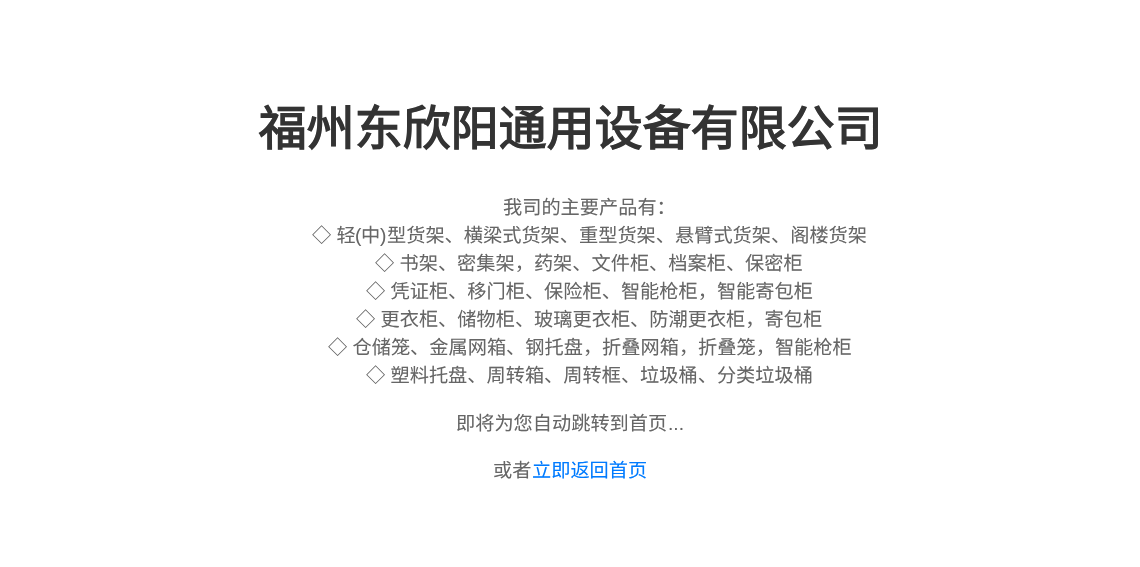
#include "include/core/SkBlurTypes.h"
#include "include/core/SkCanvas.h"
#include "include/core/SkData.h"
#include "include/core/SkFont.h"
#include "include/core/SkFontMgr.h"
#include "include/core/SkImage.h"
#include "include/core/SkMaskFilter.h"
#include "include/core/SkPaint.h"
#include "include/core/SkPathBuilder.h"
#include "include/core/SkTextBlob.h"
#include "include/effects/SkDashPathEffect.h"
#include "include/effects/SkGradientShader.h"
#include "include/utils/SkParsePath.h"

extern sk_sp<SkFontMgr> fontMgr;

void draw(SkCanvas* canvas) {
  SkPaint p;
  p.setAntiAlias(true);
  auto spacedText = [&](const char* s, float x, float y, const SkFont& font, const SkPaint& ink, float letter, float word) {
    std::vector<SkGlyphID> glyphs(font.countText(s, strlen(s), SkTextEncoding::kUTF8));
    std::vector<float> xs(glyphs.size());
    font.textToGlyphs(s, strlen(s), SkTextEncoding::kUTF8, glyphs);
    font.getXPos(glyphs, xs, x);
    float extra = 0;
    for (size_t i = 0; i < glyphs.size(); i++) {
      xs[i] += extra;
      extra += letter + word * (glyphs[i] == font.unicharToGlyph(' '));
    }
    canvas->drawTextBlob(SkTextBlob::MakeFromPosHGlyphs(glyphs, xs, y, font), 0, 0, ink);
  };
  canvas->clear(SK_ColorWHITE);
  SkFont font1(fontMgr->matchFamilyStyle("Noto Sans CJK SC", SkFontStyle::Bold()), 48);
  font1.setSubpixel(true);
  p.setColor(SkColorSetRGB(51, 51, 51));
  canvas->drawString("福州东欣阳通用设备有限公司", 258, 146, font1, p);
  SkFont font2(fontMgr->matchFamilyStyle("Noto Sans CJK SC", SkFontStyle::Normal()), 19.2f);
  font2.setSubpixel(true);
  p.setColor(SkColorSetRGB(102, 102, 102));
  canvas->drawString("我司的主要产品有：", 503, 214, font2, p);
  spacedText("◇ 轻", 312, 242, font2, p, 0, 1);
  SkFont font3(fontMgr->matchFamilyStyle("Liberation Sans", SkFontStyle::Normal()), 19.2f);
  font3.setSubpixel(true);
  canvas->drawString("(", 355, 242, font3, p);
  canvas->drawString("中", 361, 242, font2, p);
  canvas->drawString(")", 380, 242, font3, p);
  canvas->drawString("型货架、横梁式货架、重型货架、悬臂式货架、阁楼货架", 387, 242, font2, p);
  spacedText("◇ 书架、密集架，药架、文件柜、档案柜、保密柜", 375, 270, font2, p, 0, 1);
  spacedText("◇ 凭证柜、移门柜、保险柜、智能枪柜，智能寄包柜", 366, 298, font2, p, 0, 1);
  spacedText("◇ 更衣柜、储物柜、玻璃更衣柜、防潮更衣柜，寄包柜", 356, 326, font2, p, 0, 1);
  spacedText("◇ 仓储笼、金属网箱、钢托盘，折叠网箱，折叠笼，智能枪柜", 328, 354, font2, p, 0, 1);
  spacedText("◇ 塑料托盘、周转箱、周转框、垃圾桶、分类垃圾桶", 366, 382, font2, p, 0, 1);
  canvas->drawString("即将为您自动跳转到首页", 456, 430, font2, p);
  canvas->drawString("...", 668, 430, font3, p);
  canvas->drawString("或者", 493, 477, font2, p);
  p.setColor(SkColorSetRGB(0, 123, 255));
  canvas->drawString("立即返回首页", 532, 477, font2, p);
}
